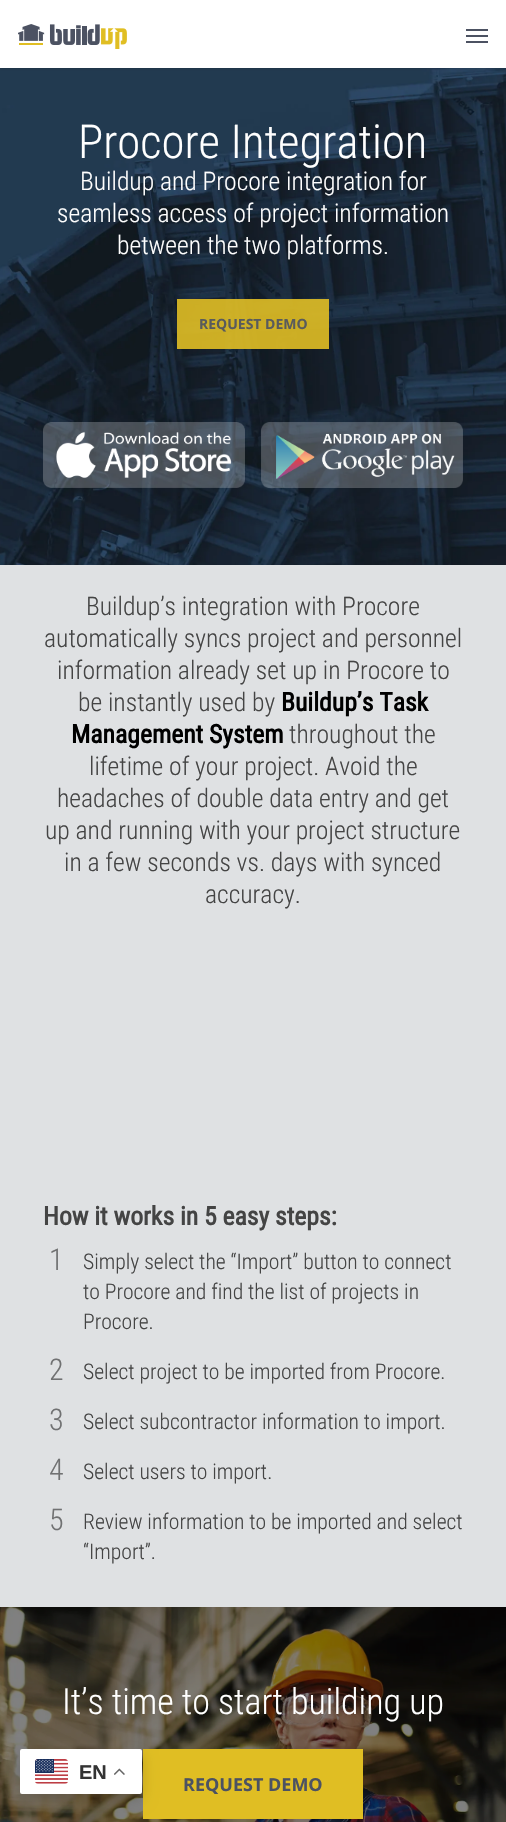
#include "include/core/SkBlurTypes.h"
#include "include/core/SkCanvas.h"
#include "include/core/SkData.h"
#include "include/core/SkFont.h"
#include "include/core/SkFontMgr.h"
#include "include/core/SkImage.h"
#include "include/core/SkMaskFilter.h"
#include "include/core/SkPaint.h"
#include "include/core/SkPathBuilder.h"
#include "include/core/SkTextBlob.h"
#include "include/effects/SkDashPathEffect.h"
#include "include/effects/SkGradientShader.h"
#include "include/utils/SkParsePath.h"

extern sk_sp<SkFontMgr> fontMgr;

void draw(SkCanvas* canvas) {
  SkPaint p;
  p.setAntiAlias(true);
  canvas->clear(SK_ColorWHITE);
  canvas->drawImageRect(SkImages::DeferredFromEncodedData(SkData::MakeFromFileName("images/2.png")), SkRect::MakeLTRB(0, 68, 506, 565), SkSamplingOptions());
  p.setColor(SkColorSetARGB(56, 0, 0, 0));
  p.setMaskFilter(SkMaskFilter::MakeBlur(kNormal_SkBlurStyle, 1.5f));
  canvas->drawRect(SkRect::MakeLTRB(0, 0, 506, 68), p);
  p.setMaskFilter(nullptr);
  p.setColor(SK_ColorWHITE);
  canvas->drawRect(SkRect::MakeLTRB(0, 0, 506, 68), p);
  canvas->drawImageRect(SkImages::DeferredFromEncodedData(SkData::MakeFromFileName("images/1.png")), SkRect::MakeLTRB(18, 24, 127, 49), SkSamplingOptions());
  p.setColor(SkColorSetRGB(76, 82, 98));
  canvas->drawRect(SkRect::MakeLTRB(466, 29, 488, 31), p);
  canvas->drawRect(SkRect::MakeLTRB(466, 41, 488, 43), p);
  canvas->drawRect(SkRect::MakeLTRB(466, 35, 488, 37), p);
  p.setColor(SkColorSetARGB(230, 224, 190, 35));
  canvas->drawRect(SkRect::MakeLTRB(177, 299, 329, 349), p);
  canvas->drawImageRect(SkImages::DeferredFromEncodedData(SkData::MakeFromFileName("images/3.png")), SkRect::MakeLTRB(43, 422, 245, 488), SkSamplingOptions());
  canvas->drawImageRect(SkImages::DeferredFromEncodedData(SkData::MakeFromFileName("images/4.png")), SkRect::MakeLTRB(261, 422, 463, 488), SkSamplingOptions());
  p.setColor(SkColorSetRGB(223, 225, 227));
  canvas->drawRect(SkRect::MakeLTRB(0, 565, 506, 1607), p);
  canvas->drawImageRect(SkImages::DeferredFromEncodedData(SkData::MakeFromFileName("images/5.png")), SkRect::MakeLTRB(0, 1607, 506, 1822), SkSamplingOptions());
  p.setColor(SkColorSetRGB(224, 190, 35));
  canvas->drawRect(SkRect::MakeLTRB(143, 1749, 363, 1819), p);
  p.setColor(SkColorSetARGB(38, 0, 0, 0));
  p.setMaskFilter(SkMaskFilter::MakeBlur(kNormal_SkBlurStyle, 7.5f));
  canvas->drawRoundRect(SkRect::MakeLTRB(20, 1754, 142, 1799), 2, 2, p);
  p.setMaskFilter(nullptr);
  p.setColor(SK_ColorWHITE);
  canvas->drawRoundRect(SkRect::MakeLTRB(20, 1749, 142, 1794), 2, 2, p);
  canvas->drawImageRect(SkImages::DeferredFromEncodedData(SkData::MakeFromFileName("images/6.png")), SkRect::MakeLTRB(35, 1759, 68, 1784), SkSamplingOptions());
  canvas->drawImageRect(SkImages::DeferredFromEncodedData(SkData::MakeFromFileName("images/7.png")), SkRect::MakeLTRB(114, 1768, 125, 1775), SkSamplingOptions());
  SkFont font1(fontMgr->matchFamilyStyle("Roboto Condensed", SkFontStyle(300, SkFontStyle::kNormal_Width, SkFontStyle::kUpright_Slant)), 46.75f);
  font1.setSubpixel(true);
  canvas->drawString("Procore Integration", 78, 158, font1, p);
  SkFont font2(fontMgr->matchFamilyStyle("Roboto Condensed", SkFontStyle(300, SkFontStyle::kNormal_Width, SkFontStyle::kUpright_Slant)), 25.6f);
  font2.setSubpixel(true);
  canvas->drawString("Buildup and Procore integration for", 80, 190, font2, p);
  canvas->drawString("seamless access of project information", 57, 222, font2, p);
  canvas->drawString("between the two platforms.", 117, 254, font2, p);
  SkFont font3(fontMgr->matchFamilyStyle("Open Sans", SkFontStyle::Bold()), 14);
  font3.setSubpixel(true);
  p.setColor(SkColorSetRGB(89, 91, 92));
  canvas->drawString("REQUEST DEMO", 199, 329, font3, p);
  p.setColor(SkColorSetRGB(68, 68, 68));
  canvas->drawString("Buildup’s integration with Procore", 86, 615, font2, p);
  canvas->drawString("automatically syncs project and personnel", 44, 647, font2, p);
  canvas->drawString("information already set up in Procore to", 57, 679, font2, p);
  canvas->drawString("be instantly used by", 78, 711, font2, p);
  SkFont font4(fontMgr->matchFamilyStyle("Roboto Condensed", SkFontStyle::Bold()), 25.6f);
  font4.setSubpixel(true);
  p.setColor(SK_ColorBLACK);
  canvas->drawString("Buildup’s Task", 281, 711, font4, p);
  canvas->drawString("Management System", 71, 743, font4, p);
  p.setColor(SkColorSetRGB(68, 68, 68));
  canvas->drawString("throughout the", 289, 743, font2, p);
  canvas->drawString("lifetime of your project. Avoid the", 89, 775, font2, p);
  canvas->drawString("headaches of double data entry and get", 57, 807, font2, p);
  canvas->drawString("up and running with your project structure", 45, 839, font2, p);
  canvas->drawString("in a few seconds vs. days with synced", 64, 871, font2, p);
  canvas->drawString("accuracy.", 205, 903, font2, p);
  canvas->drawString("How it works in 5 easy steps:", 43, 1225, font4, p);
  SkFont font5(fontMgr->matchFamilyStyle("Roboto Condensed", SkFontStyle(300, SkFontStyle::kNormal_Width, SkFontStyle::kUpright_Slant)), 30);
  font5.setSubpixel(true);
  p.setColor(SkColorSetRGB(112, 113, 114));
  canvas->drawString("1", 49, 1270, font5, p);
  SkFont font6(fontMgr->matchFamilyStyle("Roboto Condensed", SkFontStyle(300, SkFontStyle::kNormal_Width, SkFontStyle::kUpright_Slant)), 21.6f);
  font6.setSubpixel(true);
  p.setColor(SkColorSetRGB(68, 68, 68));
  canvas->drawString("Simply select the “Import” button to connect", 83, 1269, font6, p);
  canvas->drawString("to Procore and find the list of projects in", 83, 1299, font6, p);
  canvas->drawString("Procore.", 83, 1329, font6, p);
  p.setColor(SkColorSetRGB(112, 113, 114));
  canvas->drawString("2", 49, 1380, font5, p);
  p.setColor(SkColorSetRGB(68, 68, 68));
  canvas->drawString("Select project to be imported from Procore.", 83, 1379, font6, p);
  p.setColor(SkColorSetRGB(112, 113, 114));
  canvas->drawString("3", 49, 1430, font5, p);
  p.setColor(SkColorSetRGB(68, 68, 68));
  canvas->drawString("Select subcontractor information to import.", 83, 1429, font6, p);
  p.setColor(SkColorSetRGB(112, 113, 114));
  canvas->drawString("4", 49, 1480, font5, p);
  p.setColor(SkColorSetRGB(68, 68, 68));
  canvas->drawString("Select users to import.", 83, 1479, font6, p);
  p.setColor(SkColorSetRGB(112, 113, 114));
  canvas->drawString("5", 49, 1530, font5, p);
  p.setColor(SkColorSetRGB(68, 68, 68));
  canvas->drawString("Review information to be imported and select", 83, 1529, font6, p);
  canvas->drawString("“Import”.", 83, 1559, font6, p);
  SkFont font7(fontMgr->matchFamilyStyle("Roboto Condensed", SkFontStyle(300, SkFontStyle::kNormal_Width, SkFontStyle::kUpright_Slant)), 36);
  font7.setSubpixel(true);
  p.setColor(SK_ColorWHITE);
  canvas->drawString("It’s time to start building up", 62, 1714, font7, p);
  SkFont font8(fontMgr->matchFamilyStyle("Open Sans", SkFontStyle::Bold()), 18);
  font8.setSubpixel(true);
  p.setColor(SkColorSetRGB(76, 82, 98));
  canvas->drawString("REQUEST DEMO", 183, 1791, font8, p);
  SkFont font9(fontMgr->matchFamilyStyle("Liberation Sans", SkFontStyle::Bold()), 20);
  font9.setSubpixel(true);
  p.setColor(SkColorSetRGB(51, 51, 51));
  canvas->drawString("EN", 79, 1779, font9, p);
}
